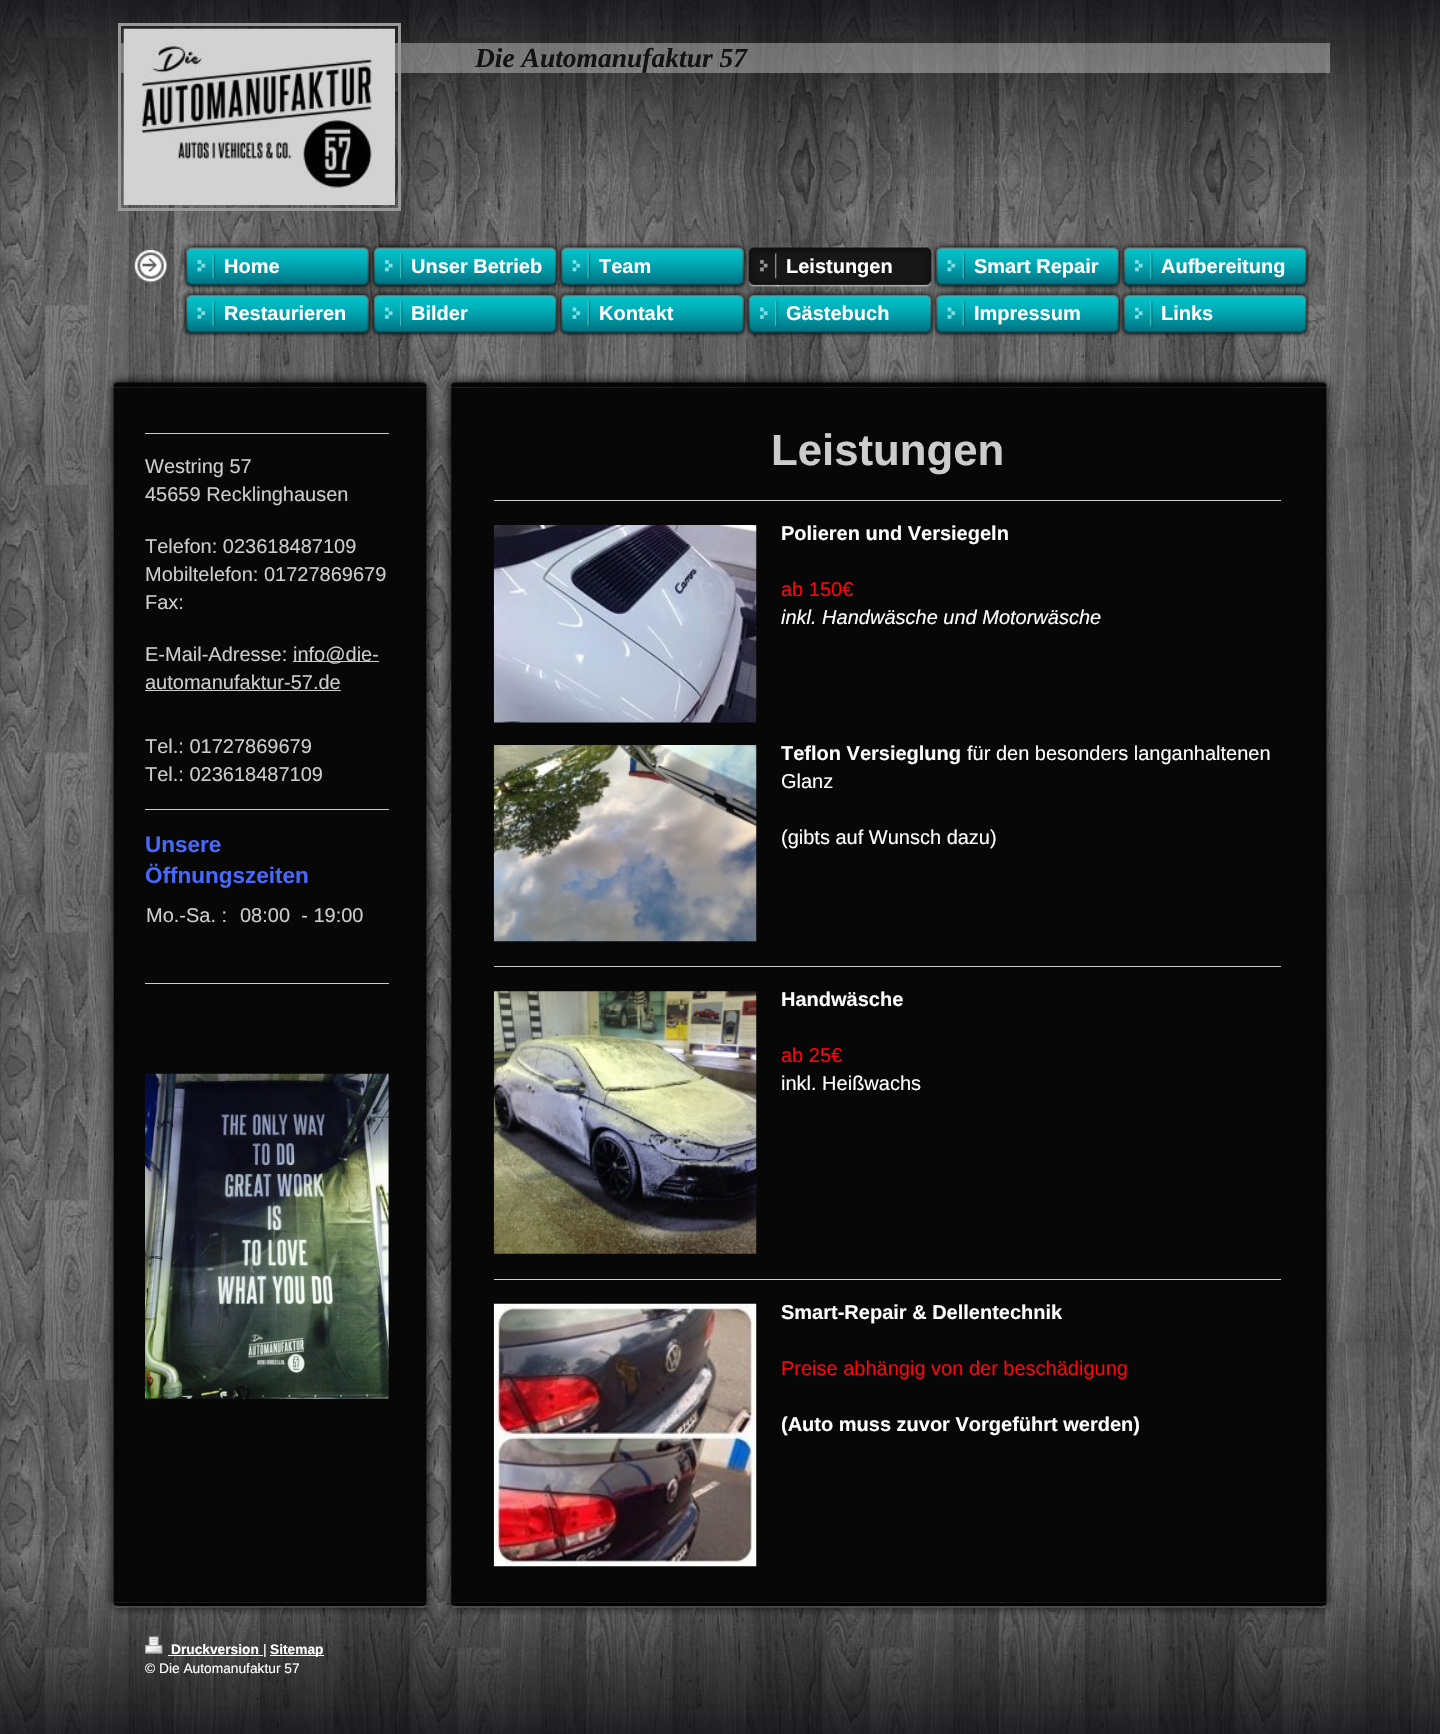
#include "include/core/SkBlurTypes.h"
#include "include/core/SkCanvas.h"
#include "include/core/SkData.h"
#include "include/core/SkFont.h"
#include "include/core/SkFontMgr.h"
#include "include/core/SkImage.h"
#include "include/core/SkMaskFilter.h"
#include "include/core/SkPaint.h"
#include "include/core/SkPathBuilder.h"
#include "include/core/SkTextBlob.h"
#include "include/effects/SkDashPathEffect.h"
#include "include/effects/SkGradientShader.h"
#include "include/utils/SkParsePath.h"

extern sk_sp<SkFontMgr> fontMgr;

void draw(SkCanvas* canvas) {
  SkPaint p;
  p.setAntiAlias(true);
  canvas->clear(SK_ColorWHITE);
  canvas->drawImageRect(SkImages::DeferredFromEncodedData(SkData::MakeFromFileName("images/1.png")), SkRect::MakeLTRB(0, 0, 1440, 1734), SkSamplingOptions());
  canvas->drawImageRect(SkImages::DeferredFromEncodedData(SkData::MakeFromFileName("images/2.png")), SkRect::MakeLTRB(0, 0, 1440, 177), SkSamplingOptions());
  p.setColor(SkColorSetARGB(87, 255, 255, 255));
  canvas->drawRect(SkRect::MakeLTRB(121, 43, 1330, 73), p);
  p.setStyle(SkPaint::kStroke_Style);
  p.setStrokeWidth(3);
  p.setColor(SkColorSetRGB(153, 153, 153));
  canvas->drawRect(SkRect::MakeLTRB(119.5f, 24.5f, 399.5f, 209.5f), p);
  canvas->drawImageRect(SkImages::DeferredFromEncodedData(SkData::MakeFromFileName("images/3.png")), SkRect::MakeLTRB(123, 28, 395, 205), SkSamplingOptions());
  canvas->drawImageRect(SkImages::DeferredFromEncodedData(SkData::MakeFromFileName("images/4.png")), SkRect::MakeLTRB(133, 249, 168, 283), SkSamplingOptions());
  canvas->drawImageRect(SkImages::DeferredFromEncodedData(SkData::MakeFromFileName("images/5.png")), SkRect::MakeLTRB(183, 243, 372, 290), SkSamplingOptions());
  canvas->drawImageRect(SkImages::DeferredFromEncodedData(SkData::MakeFromFileName("images/6.png")), SkRect::MakeLTRB(371, 243, 559, 290), SkSamplingOptions());
  canvas->drawImageRect(SkImages::DeferredFromEncodedData(SkData::MakeFromFileName("images/7.png")), SkRect::MakeLTRB(558, 243, 747, 290), SkSamplingOptions());
  canvas->drawImageRect(SkImages::DeferredFromEncodedData(SkData::MakeFromFileName("images/8.png")), SkRect::MakeLTRB(746, 244, 933, 288), SkSamplingOptions());
  canvas->drawImageRect(SkImages::DeferredFromEncodedData(SkData::MakeFromFileName("images/9.png")), SkRect::MakeLTRB(933, 243, 1122, 290), SkSamplingOptions());
  canvas->drawImageRect(SkImages::DeferredFromEncodedData(SkData::MakeFromFileName("images/10.png")), SkRect::MakeLTRB(1121, 243, 1309, 290), SkSamplingOptions());
  canvas->drawImageRect(SkImages::DeferredFromEncodedData(SkData::MakeFromFileName("images/11.png")), SkRect::MakeLTRB(183, 290, 372, 337), SkSamplingOptions());
  canvas->drawImageRect(SkImages::DeferredFromEncodedData(SkData::MakeFromFileName("images/12.png")), SkRect::MakeLTRB(371, 290, 559, 337), SkSamplingOptions());
  canvas->drawImageRect(SkImages::DeferredFromEncodedData(SkData::MakeFromFileName("images/13.png")), SkRect::MakeLTRB(558, 290, 747, 337), SkSamplingOptions());
  canvas->drawImageRect(SkImages::DeferredFromEncodedData(SkData::MakeFromFileName("images/14.png")), SkRect::MakeLTRB(746, 290, 934, 337), SkSamplingOptions());
  canvas->drawImageRect(SkImages::DeferredFromEncodedData(SkData::MakeFromFileName("images/15.png")), SkRect::MakeLTRB(933, 290, 1122, 337), SkSamplingOptions());
  canvas->drawImageRect(SkImages::DeferredFromEncodedData(SkData::MakeFromFileName("images/16.png")), SkRect::MakeLTRB(1121, 290, 1309, 337), SkSamplingOptions());
  canvas->drawImageRect(SkImages::DeferredFromEncodedData(SkData::MakeFromFileName("images/17.png")), SkRect::MakeLTRB(105, 373, 1335, 388), SkSamplingOptions());
  canvas->drawImageRect(SkImages::DeferredFromEncodedData(SkData::MakeFromFileName("images/26.png")), SkRect::MakeLTRB(0, 1557, 1440, 1734), SkSamplingOptions());
  canvas->drawImageRect(SkImages::DeferredFromEncodedData(SkData::MakeFromFileName("images/18.png")), SkRect::MakeLTRB(105, 387, 1336, 1603), SkSamplingOptions());
  p.setStyle(SkPaint::kFill_Style);
  p.setColor(SkColorSetRGB(204, 204, 204));
  canvas->drawRect(SkRect::MakeLTRB(145, 433, 389, 434), p);
  canvas->drawRect(SkRect::MakeLTRB(293, 661, 379, 662), p);
  canvas->drawRect(SkRect::MakeLTRB(145, 690, 341, 691), p);
  canvas->drawRect(SkRect::MakeLTRB(145, 809, 389, 810), p);
  canvas->drawRect(SkRect::MakeLTRB(145, 983, 389, 984), p);
  canvas->drawImageRect(SkImages::DeferredFromEncodedData(SkData::MakeFromFileName("images/19.png")), SkRect::MakeLTRB(145, 1073, 389, 1399), SkSamplingOptions());
  canvas->drawRect(SkRect::MakeLTRB(494, 500, 1281, 501), p);
  canvas->drawImageRect(SkImages::DeferredFromEncodedData(SkData::MakeFromFileName("images/20.png")), SkRect::MakeLTRB(493, 525, 757, 723), SkSamplingOptions());
  canvas->drawImageRect(SkImages::DeferredFromEncodedData(SkData::MakeFromFileName("images/21.png")), SkRect::MakeLTRB(493, 745, 757, 942), SkSamplingOptions());
  canvas->drawRect(SkRect::MakeLTRB(494, 966, 1281, 967), p);
  canvas->drawImageRect(SkImages::DeferredFromEncodedData(SkData::MakeFromFileName("images/22.png")), SkRect::MakeLTRB(493, 991, 757, 1254), SkSamplingOptions());
  canvas->drawRect(SkRect::MakeLTRB(494, 1279, 1281, 1280), p);
  canvas->drawImageRect(SkImages::DeferredFromEncodedData(SkData::MakeFromFileName("images/23.png")), SkRect::MakeLTRB(493, 1303, 757, 1567), SkSamplingOptions());
  canvas->drawImageRect(SkImages::DeferredFromEncodedData(SkData::MakeFromFileName("images/24.png")), SkRect::MakeLTRB(106, 1602, 1334, 1615), SkSamplingOptions());
  canvas->drawImageRect(SkImages::DeferredFromEncodedData(SkData::MakeFromFileName("images/25.png")), SkRect::MakeLTRB(145, 1636, 163, 1654), SkSamplingOptions());
  p.setColor(SK_ColorWHITE);
  canvas->drawRect(SkRect::MakeLTRB(168, 1655, 263, 1656), p);
  canvas->drawRect(SkRect::MakeLTRB(270, 1655, 324, 1656), p);
  SkFont font1(fontMgr->matchFamilyStyle("Liberation Serif", SkFontStyle::BoldItalic()), 27.5f);
  font1.setSubpixel(true);
  p.setColor(SkColorSetRGB(20, 19, 19));
  canvas->drawString("Die Automanufaktur 57", 475, 67, font1, p);
  SkFont font2(fontMgr->matchFamilyStyle("Liberation Sans", SkFontStyle::Bold()), 20);
  font2.setSubpixel(true);
  p.setColor(SK_ColorWHITE);
  canvas->drawString("Home", 224, 273, font2, p);
  canvas->drawString("Unser Betrieb", 411, 273, font2, p);
  canvas->drawString("Team", 599, 273, font2, p);
  canvas->drawString("Leistungen", 786, 273, font2, p);
  canvas->drawString("Smart Repair", 974, 273, font2, p);
  canvas->drawString("Aufbereitung", 1161, 273, font2, p);
  canvas->drawString("Restaurieren", 224, 320, font2, p);
  canvas->drawString("Bilder", 411, 320, font2, p);
  canvas->drawString("Kontakt", 599, 320, font2, p);
  canvas->drawString("Gästebuch", 786, 320, font2, p);
  canvas->drawString("Impressum", 974, 320, font2, p);
  canvas->drawString("Links", 1161, 320, font2, p);
  SkFont font3(fontMgr->matchFamilyStyle("Liberation Sans", SkFontStyle::Normal()), 20);
  font3.setSubpixel(true);
  p.setColor(SkColorSetRGB(204, 204, 204));
  canvas->drawString("Westring 57", 145, 473, font3, p);
  canvas->drawString("45659 Recklinghausen", 145, 501, font3, p);
  canvas->drawString("Telefon: 023618487109", 145, 553, font3, p);
  canvas->drawString("Mobiltelefon: 01727869679", 145, 581, font3, p);
  canvas->drawString("Fax:", 145, 609, font3, p);
  canvas->drawString("E-Mail-Adresse:", 145, 661, font3, p);
  canvas->drawString("info@die-", 293, 661, font3, p);
  canvas->drawString("automanufaktur-57.de", 145, 689, font3, p);
  canvas->drawString("Tel.: 01727869679", 145, 753, font3, p);
  canvas->drawString("Tel.: 023618487109", 145, 781, font3, p);
  SkFont font4(fontMgr->matchFamilyStyle("Liberation Sans", SkFontStyle::Bold()), 22.5f);
  font4.setSubpixel(true);
  p.setColor(SkColorSetRGB(72, 104, 251));
  canvas->drawString("Unsere", 145, 852, font4, p);
  canvas->drawString("Öffnungszeiten", 145, 883, font4, p);
  p.setColor(SkColorSetRGB(204, 204, 204));
  canvas->drawString("Mo.-Sa. :", 146, 922, font3, p);
  canvas->drawString("08:00  - 19:00", 240, 922, font3, p);
  SkFont font5(fontMgr->matchFamilyStyle("Liberation Sans", SkFontStyle::Bold()), 43.75f);
  font5.setSubpixel(true);
  canvas->drawString("Leistungen", 771, 465, font5, p);
  p.setColor(SK_ColorWHITE);
  canvas->drawString("Polieren und Versiegeln", 781, 540, font2, p);
  p.setColor(SkColorSetRGB(253, 4, 10));
  canvas->drawString("ab 150€", 781, 596, font3, p);
  SkFont font6(fontMgr->matchFamilyStyle("Liberation Sans", SkFontStyle::Italic()), 20);
  font6.setSubpixel(true);
  p.setColor(SK_ColorWHITE);
  canvas->drawString("inkl. Handwäsche und Motorwäsche", 781, 624, font6, p);
  canvas->drawString("Teflon Versieglung", 781, 760, font2, p);
  canvas->drawString("für den besonders langanhaltenen", 967, 760, font3, p);
  canvas->drawString("Glanz", 781, 788, font3, p);
  canvas->drawString("(gibts auf Wunsch dazu)", 781, 844, font3, p);
  canvas->drawString("Handwäsche", 781, 1006, font2, p);
  p.setColor(SkColorSetRGB(253, 4, 10));
  canvas->drawString("ab 25€", 781, 1062, font3, p);
  p.setColor(SK_ColorWHITE);
  canvas->drawString("inkl. Heißwachs", 781, 1090, font3, p);
  canvas->drawString("Smart-Repair & Dellentechnik", 781, 1319, font2, p);
  p.setColor(SkColorSetRGB(253, 4, 10));
  canvas->drawString("Preise abhängig von der beschädigung", 781, 1375, font3, p);
  p.setColor(SK_ColorWHITE);
  canvas->drawString("(Auto muss zuvor Vorgeführt werden)", 781, 1431, font2, p);
  SkFont font7(fontMgr->matchFamilyStyle("Liberation Sans", SkFontStyle::Bold()), 13.75f);
  font7.setSubpixel(true);
  canvas->drawString("Druckversion", 171, 1654, font7, p);
  SkFont font8(fontMgr->matchFamilyStyle("Liberation Sans", SkFontStyle::Normal()), 13.75f);
  font8.setSubpixel(true);
  canvas->drawString("|", 263, 1654, font8, p);
  canvas->drawString("Sitemap", 270, 1654, font7, p);
  canvas->drawString("© Die Automanufaktur 57", 145, 1673, font8, p);
}
